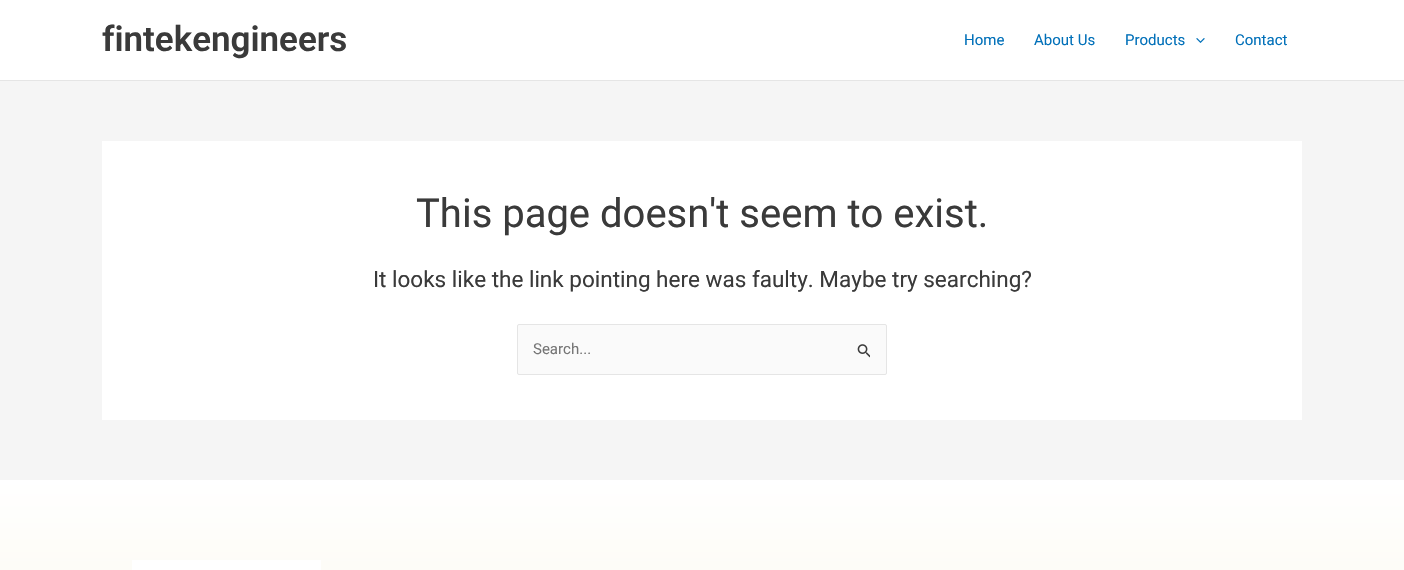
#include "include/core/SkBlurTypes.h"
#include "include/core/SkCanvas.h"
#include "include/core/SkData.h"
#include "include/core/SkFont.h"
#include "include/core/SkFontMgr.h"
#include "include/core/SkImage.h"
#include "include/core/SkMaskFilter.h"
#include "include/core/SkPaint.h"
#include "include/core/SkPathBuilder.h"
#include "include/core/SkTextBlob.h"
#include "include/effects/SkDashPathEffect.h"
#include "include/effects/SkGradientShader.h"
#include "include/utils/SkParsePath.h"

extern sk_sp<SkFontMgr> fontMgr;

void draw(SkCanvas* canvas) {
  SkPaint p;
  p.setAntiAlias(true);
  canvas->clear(SkColorSetRGB(245, 245, 245));
  p.setColor(SK_ColorWHITE);
  canvas->drawRect(SkRect::MakeLTRB(0, 0, 1404, 80), p);
  p.setColor(SkColorSetRGB(229, 229, 229));
  canvas->drawRect(SkRect::MakeLTRB(0, 80, 1404, 81), p);
  canvas->drawImageRect(SkImages::DeferredFromEncodedData(SkData::MakeFromFileName("images/1.png")), SkRect::MakeLTRB(1196, 38, 1205, 43), SkSamplingOptions());
  p.setColor(SK_ColorWHITE);
  canvas->drawRect(SkRect::MakeLTRB(102, 141, 1302, 420), p);
  p.setColor(SkColorSetRGB(250, 250, 250));
  canvas->drawRoundRect(SkRect::MakeLTRB(517.5f, 324.5f, 886.5f, 374.5f), 1.5f, 1.5f, p);
  p.setStyle(SkPaint::kStroke_Style);
  p.setStrokeWidth(1);
  p.setColor(SkColorSetRGB(229, 229, 229));
  canvas->drawRoundRect(SkRect::MakeLTRB(517.5f, 324.5f, 886.5f, 374.5f), 1.5f, 1.5f, p);
  canvas->drawImageRect(SkImages::DeferredFromEncodedData(SkData::MakeFromFileName("images/2.png")), SkRect::MakeLTRB(857, 344, 870, 358), SkSamplingOptions());
  p.setStyle(SkPaint::kFill_Style);
  {
    const SkColor colors[] = {SK_ColorWHITE, SkColorSetRGB(245, 237, 207)};
    const float stops[] = {0, 1};
    const SkPoint ends[] = {{702, 480}, {702, 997}};
    p.setShader(SkGradientShader::MakeLinear(ends, colors, stops, 2, SkTileMode::kClamp));
    p.setAlpha(255);
  }
  canvas->drawRect(SkRect::MakeLTRB(0, 480, 1404, 570), p);
  p.setShader(nullptr);
  p.setColor(SK_ColorWHITE);
  canvas->drawRect(SkRect::MakeLTRB(132, 560, 321, 570), p);
  SkFont font1(fontMgr->matchFamilyStyle("Roboto", SkFontStyle(600, SkFontStyle::kNormal_Width, SkFontStyle::kUpright_Slant)), 35);
  font1.setSubpixel(true);
  p.setColor(SkColorSetRGB(58, 58, 58));
  canvas->drawString("fintekengineers", 102, 51, font1, p);
  SkFont font2(fontMgr->matchFamilyStyle("Roboto", SkFontStyle::Normal()), 15);
  font2.setSubpixel(true);
  p.setColor(SkColorSetRGB(1, 112, 185));
  canvas->drawString("Home", 964, 45, font2, p);
  canvas->drawString("About Us", 1034, 45, font2, p);
  canvas->drawString("Products", 1125, 45, font2, p);
  canvas->drawString("Contact", 1235, 45, font2, p);
  SkFont font3(fontMgr->matchFamilyStyle("Roboto", SkFontStyle::Normal()), 40);
  font3.setSubpixel(true);
  p.setColor(SkColorSetRGB(58, 58, 58));
  canvas->drawString("This page doesn't seem to exist.", 416, 227, font3, p);
  SkFont font4(fontMgr->matchFamilyStyle("Roboto", SkFontStyle::Normal()), 22.5f);
  font4.setSubpixel(true);
  canvas->drawString("It looks like the link pointing here was faulty. Maybe try searching?", 373, 287, font4, p);
  p.setColor(SkColorSetRGB(117, 117, 117));
  canvas->drawString("Search...", 533, 354, font2, p);
}
